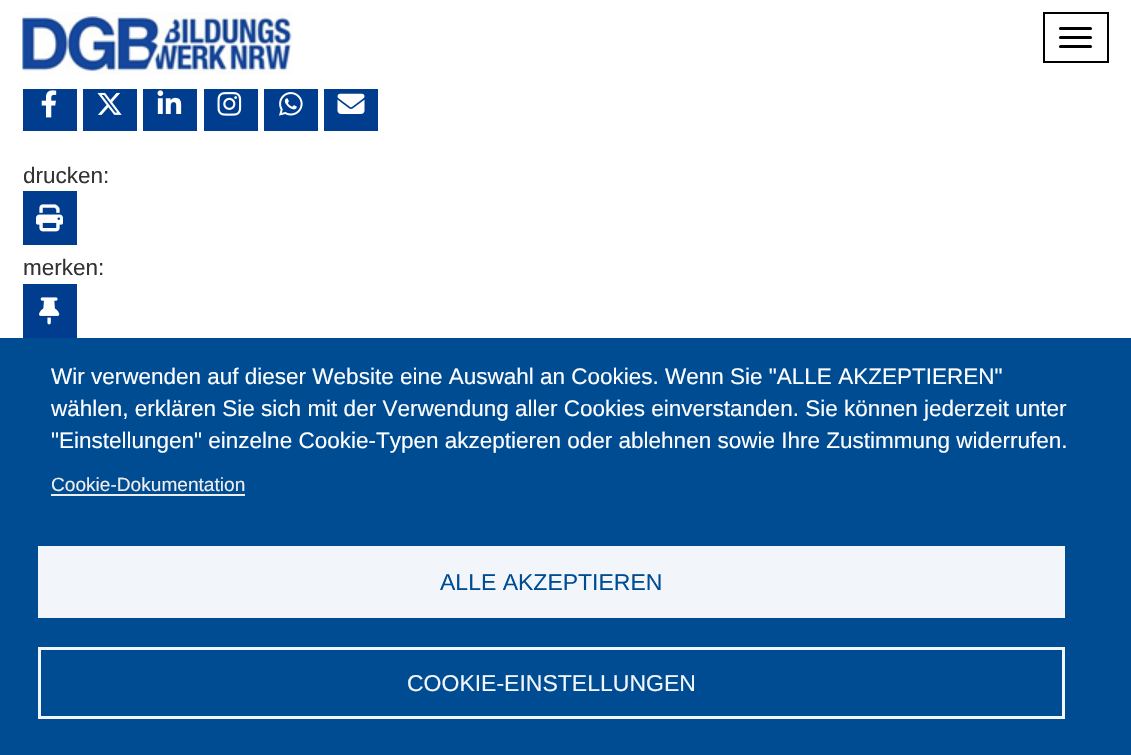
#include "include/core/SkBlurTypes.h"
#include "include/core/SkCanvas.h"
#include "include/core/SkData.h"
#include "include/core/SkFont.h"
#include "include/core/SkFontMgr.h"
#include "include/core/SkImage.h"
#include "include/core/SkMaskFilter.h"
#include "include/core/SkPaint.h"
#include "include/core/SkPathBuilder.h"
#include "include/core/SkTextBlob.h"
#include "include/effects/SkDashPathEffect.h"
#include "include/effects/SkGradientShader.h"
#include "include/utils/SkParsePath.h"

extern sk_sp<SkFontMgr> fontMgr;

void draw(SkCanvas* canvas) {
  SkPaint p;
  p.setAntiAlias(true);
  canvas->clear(SK_ColorWHITE);
  canvas->drawImageRect(SkImages::DeferredFromEncodedData(SkData::MakeFromFileName("images/1.png")), SkRect::MakeLTRB(22, 12, 293, 75), SkSamplingOptions());
  p.setStyle(SkPaint::kStroke_Style);
  p.setStrokeWidth(2);
  p.setColor(SK_ColorBLACK);
  canvas->drawRect(SkRect::MakeLTRB(1044, 13, 1108, 62), p);
  p.setStyle(SkPaint::kFill_Style);
  canvas->drawRoundRect(SkRect::MakeLTRB(1059, 27, 1092, 30), 1.5f, 1.5f, p);
  canvas->drawRoundRect(SkRect::MakeLTRB(1059, 36, 1092, 39), 1.5f, 1.5f, p);
  canvas->drawRoundRect(SkRect::MakeLTRB(1059, 45, 1092, 48), 1.5f, 1.5f, p);
  p.setColor(SkColorSetRGB(0, 61, 142));
  canvas->drawRect(SkRect::MakeLTRB(23, 89, 77, 131), p);
  canvas->drawImageRect(SkImages::DeferredFromEncodedData(SkData::MakeFromFileName("images/2.png")), SkRect::MakeLTRB(41, 90, 57, 118), SkSamplingOptions());
  canvas->drawRect(SkRect::MakeLTRB(83, 89, 137, 131), p);
  canvas->drawImageRect(SkImages::DeferredFromEncodedData(SkData::MakeFromFileName("images/3.png")), SkRect::MakeLTRB(97, 92, 122, 115), SkSamplingOptions());
  canvas->drawRect(SkRect::MakeLTRB(143, 89, 197, 131), p);
  canvas->drawImageRect(SkImages::DeferredFromEncodedData(SkData::MakeFromFileName("images/4.png")), SkRect::MakeLTRB(157, 90, 182, 114), SkSamplingOptions());
  canvas->drawRect(SkRect::MakeLTRB(204, 89, 258, 131), p);
  canvas->drawImageRect(SkImages::DeferredFromEncodedData(SkData::MakeFromFileName("images/5.png")), SkRect::MakeLTRB(217, 92, 242, 116), SkSamplingOptions());
  canvas->drawRect(SkRect::MakeLTRB(264, 89, 318, 131), p);
  canvas->drawImageRect(SkImages::DeferredFromEncodedData(SkData::MakeFromFileName("images/6.png")), SkRect::MakeLTRB(279, 92, 303, 116), SkSamplingOptions());
  canvas->drawRect(SkRect::MakeLTRB(324, 89, 378, 131), p);
  canvas->drawImageRect(SkImages::DeferredFromEncodedData(SkData::MakeFromFileName("images/7.png")), SkRect::MakeLTRB(337, 93, 365, 114), SkSamplingOptions());
  canvas->drawRect(SkRect::MakeLTRB(23, 191, 77, 245), p);
  canvas->drawImageRect(SkImages::DeferredFromEncodedData(SkData::MakeFromFileName("images/8.png")), SkRect::MakeLTRB(36, 204, 63, 232), SkSamplingOptions());
  canvas->drawRect(SkRect::MakeLTRB(23, 284, 77, 338), p);
  canvas->drawImageRect(SkImages::DeferredFromEncodedData(SkData::MakeFromFileName("images/9.png")), SkRect::MakeLTRB(39, 297, 60, 325), SkSamplingOptions());
  p.setColor(SkColorSetRGB(0, 76, 147));
  canvas->drawRect(SkRect::MakeLTRB(0, 338, 1131, 755), p);
  p.setColor(SkColorSetRGB(238, 238, 238));
  canvas->drawRect(SkRect::MakeLTRB(51, 494, 245, 496), p);
  p.setColor(SkColorSetRGB(242, 246, 250));
  canvas->drawRect(SkRect::MakeLTRB(38, 546, 1065, 618), p);
  p.setStyle(SkPaint::kStroke_Style);
  p.setStrokeWidth(3);
  canvas->drawRect(SkRect::MakeLTRB(39.5f, 648.5f, 1063.5f, 717.5f), p);
  SkFont font1(fontMgr->matchFamilyStyle("Liberation Sans", SkFontStyle::Normal()), 22.5f);
  font1.setSubpixel(true);
  p.setStyle(SkPaint::kFill_Style);
  p.setColor(SkColorSetRGB(51, 51, 51));
  canvas->drawString("drucken:", 23, 183, font1, p);
  canvas->drawString("merken:", 23, 275, font1, p);
  p.setColor(SK_ColorWHITE);
  canvas->drawString("Wir verwenden auf dieser Website eine Auswahl an Cookies. Wenn Sie \"ALLE AKZEPTIEREN\"", 51, 384, font1, p);
  canvas->drawString("wählen, erklären Sie sich mit der Verwendung aller Cookies einverstanden. Sie können jederzeit unter", 51, 416, font1, p);
  canvas->drawString("\"Einstellungen\" einzelne Cookie-Typen akzeptieren oder ablehnen sowie Ihre Zustimmung widerrufen.", 51, 448, font1, p);
  SkFont font2(fontMgr->matchFamilyStyle("Liberation Sans", SkFontStyle::Normal()), 19.1f);
  font2.setSubpixel(true);
  p.setColor(SkColorSetRGB(238, 238, 238));
  canvas->drawString("Cookie-Dokumentation", 51, 491, font2, p);
  SkFont font3(fontMgr->matchFamilyStyle("Liberation Sans", SkFontStyle::Normal()), 23);
  font3.setSubpixel(true);
  p.setColor(SkColorSetRGB(0, 76, 147));
  canvas->drawString("ALLE AKZEPTIEREN", 440, 590, font3, p);
  p.setColor(SkColorSetRGB(242, 246, 250));
  canvas->drawString("COOKIE-EINSTELLUNGEN", 407, 691, font3, p);
}
